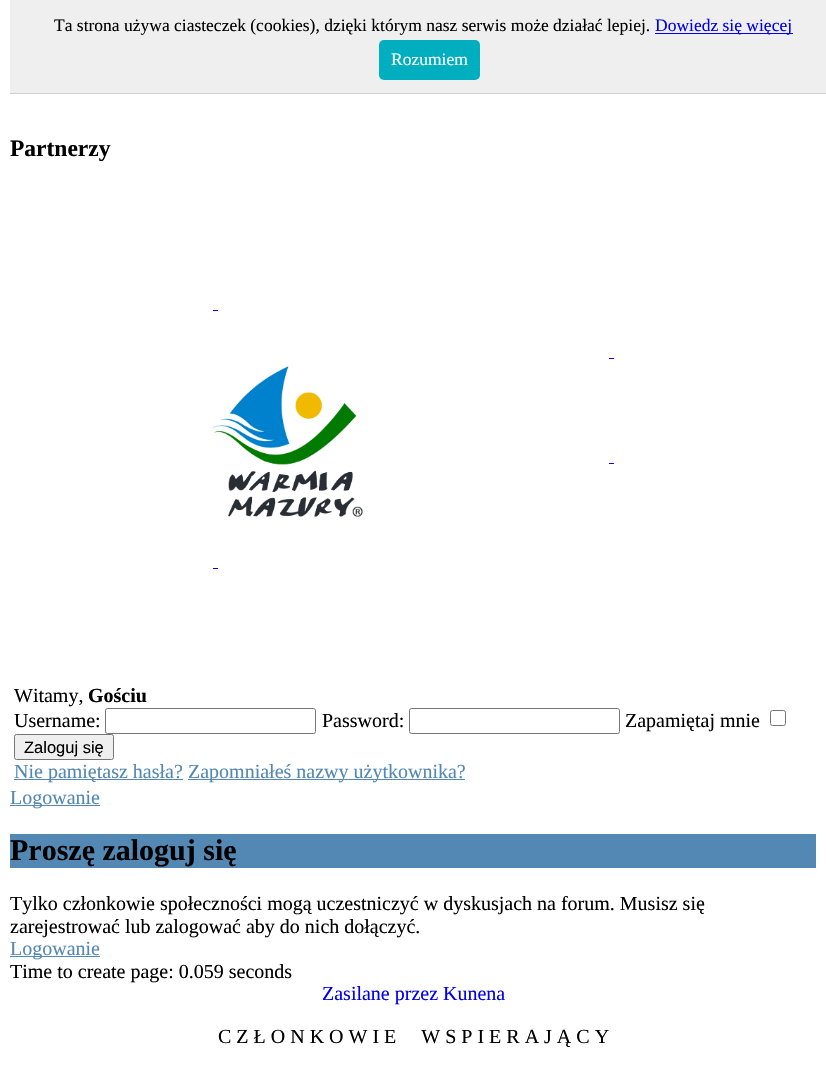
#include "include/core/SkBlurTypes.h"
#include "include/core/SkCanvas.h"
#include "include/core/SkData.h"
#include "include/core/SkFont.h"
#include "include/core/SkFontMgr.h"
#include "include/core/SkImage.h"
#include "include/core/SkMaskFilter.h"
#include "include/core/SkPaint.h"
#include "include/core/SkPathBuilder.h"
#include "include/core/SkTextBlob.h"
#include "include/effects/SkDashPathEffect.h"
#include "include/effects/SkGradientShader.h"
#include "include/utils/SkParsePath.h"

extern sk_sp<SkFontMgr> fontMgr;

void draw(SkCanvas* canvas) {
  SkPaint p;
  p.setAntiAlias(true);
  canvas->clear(SK_ColorWHITE);
  p.setColor(SkColorSetRGB(239, 239, 239));
  canvas->drawRect(SkRect::MakeLTRB(10, 0, 826, 93), p);
  p.setColor(SkColorSetRGB(211, 208, 208));
  canvas->drawRect(SkRect::MakeLTRB(10, 93, 826, 94), p);
  p.setColor(SkColorSetRGB(0, 0, 238));
  canvas->drawRect(SkRect::MakeLTRB(655, 33, 793, 34), p);
  p.setColor(SkColorSetRGB(0, 175, 191));
  canvas->drawRoundRect(SkRect::MakeLTRB(379, 40, 480, 80), 5, 5, p);
  p.setColor(SkColorSetRGB(0, 0, 238));
  canvas->drawRect(SkRect::MakeLTRB(213, 310, 218, 311), p);
  canvas->drawRect(SkRect::MakeLTRB(609, 358, 614, 359), p);
  canvas->drawImageRect(SkImages::DeferredFromEncodedData(SkData::MakeFromFileName("images/1.png")), SkRect::MakeLTRB(212, 366, 363, 517), SkSamplingOptions());
  canvas->drawRect(SkRect::MakeLTRB(609, 463, 614, 464), p);
  canvas->drawRect(SkRect::MakeLTRB(213, 568, 218, 569), p);
  p.setStyle(SkPaint::kStroke_Style);
  p.setStrokeWidth(1);
  p.setColor(SkColorSetRGB(118, 118, 118));
  canvas->drawRoundRect(SkRect::MakeLTRB(105.5f, 708.5f, 315.5f, 733.5f), 2, 2, p);
  canvas->drawRoundRect(SkRect::MakeLTRB(770.5f, 710.5f, 785.5f, 725.5f), 2, 2, p);
  p.setStyle(SkPaint::kFill_Style);
  p.setColor(SkColorSetRGB(239, 239, 239));
  canvas->drawRoundRect(SkRect::MakeLTRB(14.5f, 734.5f, 113.5f, 759.5f), 2, 2, p);
  p.setStyle(SkPaint::kStroke_Style);
  p.setColor(SkColorSetRGB(118, 118, 118));
  canvas->drawRoundRect(SkRect::MakeLTRB(14.5f, 734.5f, 113.5f, 759.5f), 2, 2, p);
  canvas->drawRoundRect(SkRect::MakeLTRB(409.5f, 708.5f, 619.5f, 733.5f), 2, 2, p);
  p.setStyle(SkPaint::kFill_Style);
  p.setColor(SkColorSetRGB(83, 136, 180));
  canvas->drawRect(SkRect::MakeLTRB(14, 779, 183, 780), p);
  canvas->drawRect(SkRect::MakeLTRB(188, 779, 465, 780), p);
  canvas->drawRect(SkRect::MakeLTRB(10, 805, 100, 806), p);
  canvas->drawRect(SkRect::MakeLTRB(10, 834, 816, 868), p);
  canvas->drawRect(SkRect::MakeLTRB(10, 956, 100, 957), p);
  SkFont font1(fontMgr->matchFamilyStyle("Liberation Serif", SkFontStyle::Normal()), 17.5f);
  font1.setSubpixel(true);
  p.setColor(SK_ColorBLACK);
  canvas->drawString("Ta strona używa ciasteczek (cookies), dzięki którym nasz serwis może działać lepiej.", 54, 31, font1, p);
  p.setColor(SkColorSetRGB(0, 0, 238));
  canvas->drawString("Dowiedz się więcej", 655, 31, font1, p);
  p.setColor(SK_ColorWHITE);
  canvas->drawString("Rozumiem", 391, 65, font1, p);
  SkFont font2(fontMgr->matchFamilyStyle("Liberation Serif", SkFontStyle::Bold()), 23.5f);
  font2.setSubpixel(true);
  p.setColor(SK_ColorBLACK);
  canvas->drawString("Partnerzy", 10, 156, font2, p);
  SkFont font3(fontMgr->matchFamilyStyle("Liberation Serif", SkFontStyle::Normal()), 20);
  font3.setSubpixel(true);
  canvas->drawString("Witamy,", 14, 702, font3, p);
  SkFont font4(fontMgr->matchFamilyStyle("Liberation Serif", SkFontStyle::Bold()), 20);
  font4.setSubpixel(true);
  canvas->drawString("Gościu", 88, 702, font4, p);
  canvas->drawString("Username:", 14, 727, font3, p);
  canvas->drawString("Zapamiętaj mnie", 625, 727, font3, p);
  SkFont font5(fontMgr->matchFamilyStyle("Liberation Sans", SkFontStyle::Normal()), 16.5f);
  font5.setSubpixel(true);
  canvas->drawString("Zaloguj się", 24, 753, font5, p);
  canvas->drawString("Password:", 322, 727, font3, p);
  p.setColor(SkColorSetRGB(83, 136, 180));
  canvas->drawString("Nie pamiętasz hasła?", 14, 778, font3, p);
  canvas->drawString("Zapomniałeś nazwy użytkownika?", 188, 778, font3, p);
  canvas->drawString("Logowanie", 10, 804, font3, p);
  SkFont font6(fontMgr->matchFamilyStyle("Liberation Serif", SkFontStyle::Bold()), 30);
  font6.setSubpixel(true);
  p.setColor(SK_ColorBLACK);
  canvas->drawString("Proszę zaloguj się", 10, 860, font6, p);
  canvas->drawString("Tylko członkowie społeczności mogą uczestniczyć w dyskusjach na forum. Musisz się", 10, 910, font3, p);
  canvas->drawString("zarejestrować lub zalogować aby do nich dołączyć.", 10, 933, font3, p);
  p.setColor(SkColorSetRGB(83, 136, 180));
  canvas->drawString("Logowanie", 10, 955, font3, p);
  p.setColor(SK_ColorBLACK);
  canvas->drawString("Time to create page: 0.059 seconds", 10, 978, font3, p);
  p.setColor(SkColorSetRGB(0, 0, 238));
  canvas->drawString("Zasilane przez Kunena", 322, 1000, font3, p);
  p.setColor(SK_ColorBLACK);
  canvas->drawString("C Z Ł O N K O W I E     W S P I E R A J Ą C Y", 218, 1043, font3, p);
}
